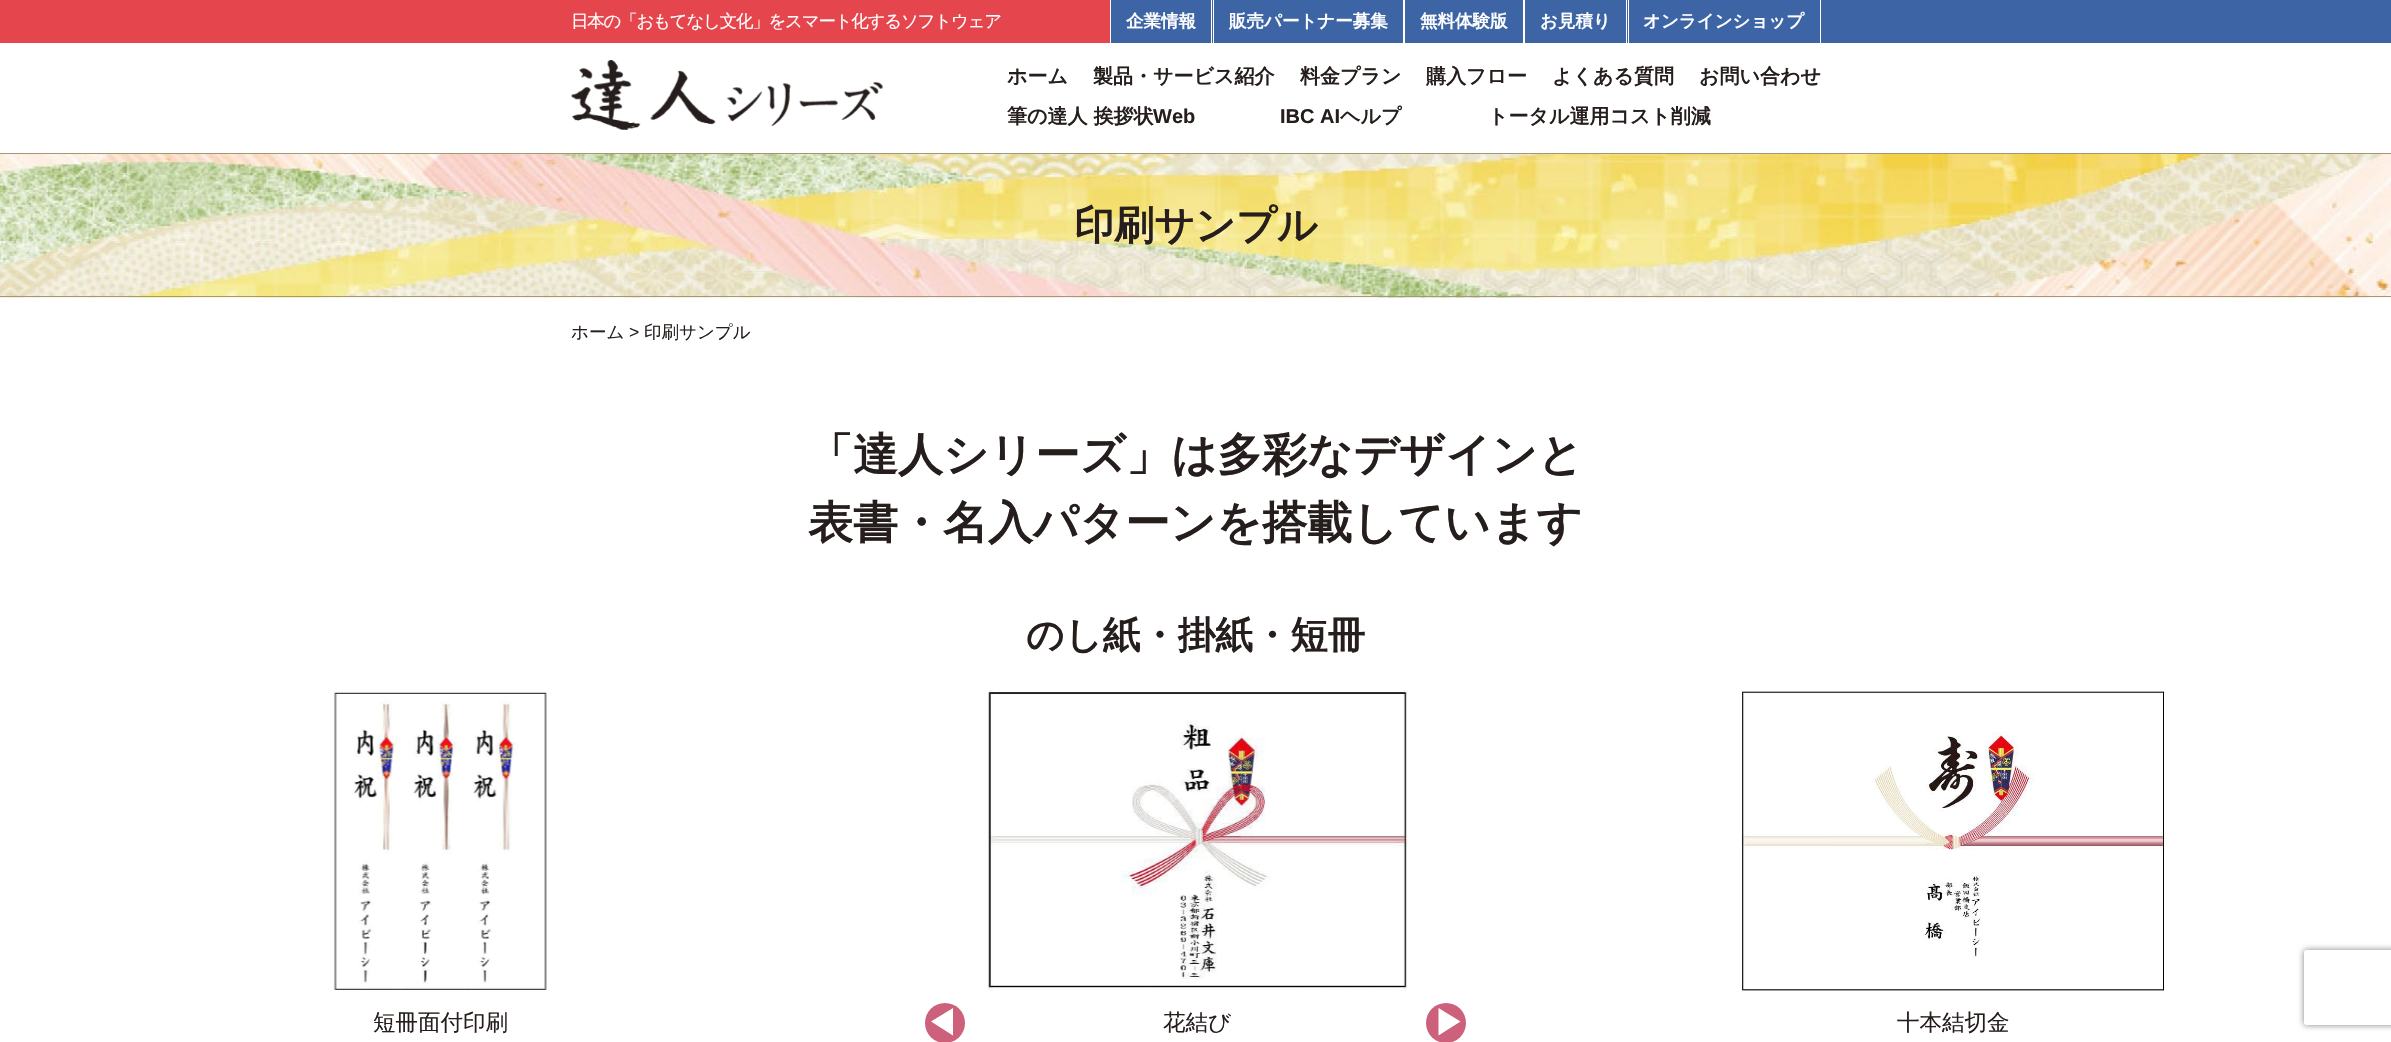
#include "include/core/SkBlurTypes.h"
#include "include/core/SkCanvas.h"
#include "include/core/SkData.h"
#include "include/core/SkFont.h"
#include "include/core/SkFontMgr.h"
#include "include/core/SkImage.h"
#include "include/core/SkMaskFilter.h"
#include "include/core/SkPaint.h"
#include "include/core/SkPathBuilder.h"
#include "include/core/SkTextBlob.h"
#include "include/effects/SkDashPathEffect.h"
#include "include/effects/SkGradientShader.h"
#include "include/utils/SkParsePath.h"

extern sk_sp<SkFontMgr> fontMgr;

void draw(SkCanvas* canvas) {
  SkPaint p;
  p.setAntiAlias(true);
  auto spacedText = [&](const char* s, float x, float y, const SkFont& font, const SkPaint& ink, float letter, float word) {
    std::vector<SkGlyphID> glyphs(font.countText(s, strlen(s), SkTextEncoding::kUTF8));
    std::vector<float> xs(glyphs.size());
    font.textToGlyphs(s, strlen(s), SkTextEncoding::kUTF8, glyphs);
    font.getXPos(glyphs, xs, x);
    float extra = 0;
    for (size_t i = 0; i < glyphs.size(); i++) {
      xs[i] += extra;
      extra += letter + word * (glyphs[i] == font.unicharToGlyph(' '));
    }
    canvas->drawTextBlob(SkTextBlob::MakeFromPosHGlyphs(glyphs, xs, y, font), 0, 0, ink);
  };
  canvas->clear(SK_ColorWHITE);
  {
    const SkColor colors[] = {SkColorSetRGB(229, 70, 77), SkColorSetRGB(229, 70, 77), SkColorSetRGB(61, 100, 165), SkColorSetRGB(61, 100, 165)};
    const float stops[] = {0, 0.64f, 0.64f, 1};
    const SkPoint ends[] = {{0, 21}, {2391, 21}};
    p.setShader(SkGradientShader::MakeLinear(ends, colors, stops, 4, SkTileMode::kClamp));
    p.setAlpha(255);
  }
  canvas->drawRect(SkRect::MakeLTRB(0, 0, 2391, 43), p);
  p.setShader(nullptr);
  p.setColor(SkColorSetRGB(61, 100, 165));
  canvas->drawRect(SkRect::MakeLTRB(1111, 0, 1213, 43), p);
  p.setColor(SK_ColorWHITE);
  canvas->drawRect(SkRect::MakeLTRB(1211, 0, 1212, 44), p);
  canvas->drawRect(SkRect::MakeLTRB(1110, 0, 1111, 44), p);
  p.setColor(SkColorSetRGB(61, 100, 165));
  canvas->drawRect(SkRect::MakeLTRB(1214, 0, 1403, 43), p);
  p.setColor(SK_ColorWHITE);
  canvas->drawRect(SkRect::MakeLTRB(1403, 0, 1405, 44), p);
  canvas->drawRect(SkRect::MakeLTRB(1213, 0, 1214, 44), p);
  p.setColor(SkColorSetRGB(61, 100, 165));
  canvas->drawRect(SkRect::MakeLTRB(1405, 0, 1523, 43), p);
  p.setColor(SK_ColorWHITE);
  canvas->drawRect(SkRect::MakeLTRB(1523, 0, 1525, 44), p);
  p.setColor(SkColorSetRGB(61, 100, 165));
  canvas->drawRect(SkRect::MakeLTRB(1525, 0, 1530, 43), p);
  p.setColor(SK_ColorWHITE);
  canvas->drawRect(SkRect::MakeLTRB(1626, 0, 1627, 44), p);
  canvas->drawRect(SkRect::MakeLTRB(1820, 0, 1821, 44), p);
  canvas->drawRect(SkRect::MakeLTRB(1628, 0, 1629, 44), p);
  p.setColor(SkColorSetRGB(164, 152, 116));
  canvas->drawRect(SkRect::MakeLTRB(0, 153, 2391, 154), p);
  canvas->drawImageRect(SkImages::DeferredFromEncodedData(SkData::MakeFromFileName("images/1.png")), SkRect::MakeLTRB(571, 60, 883, 130), SkSamplingOptions());
  canvas->drawImageRect(SkImages::DeferredFromEncodedData(SkData::MakeFromFileName("images/2.png")), SkRect::MakeLTRB(0, 154, 2391, 298), SkSamplingOptions());
  p.setColor(SkColorSetRGB(165, 153, 116));
  canvas->drawRect(SkRect::MakeLTRB(0, 296, 2391, 297), p);
  p.setColor(SkColorSetRGB(205, 96, 122));
  canvas->drawCircle(945, 1023, 20, p);
  p.setColor(SK_ColorWHITE);
  canvas->drawPath(SkPathBuilder().moveTo(953, 1008).lineTo(953, 1035.5f).lineTo(931, 1021.5f).close().detach(), p);
  p.setColor(SkColorSetRGB(205, 96, 122));
  canvas->drawCircle(1446, 1023, 20, p);
  p.setColor(SK_ColorWHITE);
  canvas->drawPath(SkPathBuilder().moveTo(1438.5f, 1035.5f).lineTo(1438.5f, 1008).lineTo(1460.5f, 1021.5f).close().detach(), p);
  canvas->drawImageRect(SkImages::DeferredFromEncodedData(SkData::MakeFromFileName("images/3.png")), SkRect::MakeLTRB(333, 691, 548, 991), SkSamplingOptions());
  canvas->drawImageRect(SkImages::DeferredFromEncodedData(SkData::MakeFromFileName("images/4.png")), SkRect::MakeLTRB(987, 690, 1408, 991), SkSamplingOptions());
  canvas->drawImageRect(SkImages::DeferredFromEncodedData(SkData::MakeFromFileName("images/5.png")), SkRect::MakeLTRB(1741, 690, 2166, 992), SkSamplingOptions());
  canvas->save();
  canvas->clipPath(SkPathBuilder(SkPathFillType::kEvenOdd).moveTo(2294, 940).lineTo(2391, 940).lineTo(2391, 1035).lineTo(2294, 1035).close().moveTo(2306.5f, 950).lineTo(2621.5f, 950).cubicTo(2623, 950, 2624, 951, 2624, 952.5f).lineTo(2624, 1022.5f).cubicTo(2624, 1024, 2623, 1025, 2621.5f, 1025).lineTo(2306.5f, 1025).cubicTo(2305, 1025, 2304, 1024, 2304, 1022.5f).lineTo(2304, 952.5f).cubicTo(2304, 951, 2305, 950, 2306.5f, 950).close().detach(), true);
  p.setColor(SkColorSetRGB(128, 128, 128));
  p.setMaskFilter(SkMaskFilter::MakeBlur(kNormal_SkBlurStyle, 3));
  canvas->drawRoundRect(SkRect::MakeLTRB(2304, 950, 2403, 1025), 2.5f, 2.5f, p);
  p.setMaskFilter(nullptr);
  canvas->restore();
  SkFont font1(fontMgr->matchFamilyStyle("WenQuanYi Zen Hei", SkFontStyle(500, SkFontStyle::kNormal_Width, SkFontStyle::kUpright_Slant)), 17.5f);
  font1.setSubpixel(true);
  p.setColor(SK_ColorWHITE);
  spacedText("日本の「おもてなし文化」をスマート化するソフトウェア", 571, 27, font1, p, -1.25f, 0);
  SkFont font2(fontMgr->matchFamilyStyle("WenQuanYi Zen Hei", SkFontStyle::Bold()), 17.5f);
  font2.setSubpixel(true);
  canvas->drawString("企業情報", 1126, 27, font2, p);
  canvas->drawString("販売パートナー募集", 1229, 27, font2, p);
  canvas->drawString("無料体験版", 1420, 27, font2, p);
  canvas->drawString("お見積り", 1540, 27, font2, p);
  canvas->drawString("オンラインショップ", 1643, 27, font2, p);
  SkFont font3(fontMgr->matchFamilyStyle("WenQuanYi Zen Hei", SkFontStyle::Bold()), 20);
  font3.setSubpixel(true);
  p.setColor(SkColorSetRGB(37, 30, 28));
  canvas->drawString("ホーム", 1007, 83, font3, p);
  canvas->drawString("製品・サービス紹介", 1093, 83, font3, p);
  canvas->drawString("料金プラン", 1300, 83, font3, p);
  canvas->drawString("購入フロー", 1426, 83, font3, p);
  canvas->drawString("よくある質問", 1552, 83, font3, p);
  canvas->drawString("お問い合わせ", 1699, 83, font3, p);
  canvas->drawString("筆の達人 挨拶状", 1007, 123, font3, p);
  SkFont font4(fontMgr->matchFamilyStyle("Liberation Sans", SkFontStyle::Bold()), 20);
  font4.setSubpixel(true);
  canvas->drawString("Web", 1153, 123, font4, p);
  canvas->drawString("IBC AI", 1280, 123, font4, p);
  canvas->drawString("ヘルプ", 1340, 123, font3, p);
  canvas->drawString("トータル運用コスト削減", 1488, 123, font3, p);
  SkFont font5(fontMgr->matchFamilyStyle("WenQuanYi Zen Hei", SkFontStyle::Bold()), 40);
  font5.setSubpixel(true);
  canvas->drawString("印刷サンプル", 1074, 239, font5, p);
  canvas->drawString("ホーム", 571, 338, font1, p);
  SkFont font6(fontMgr->matchFamilyStyle("Liberation Sans", SkFontStyle::Normal()), 17.5f);
  font6.setSubpixel(true);
  canvas->drawString(">", 629, 338, font6, p);
  canvas->drawString("印刷サンプル", 644, 338, font1, p);
  SkFont font7(fontMgr->matchFamilyStyle("WenQuanYi Zen Hei", SkFontStyle::Bold()), 45);
  font7.setSubpixel(true);
  canvas->drawString("「達人シリーズ」は多彩なデザインと", 808, 470, font7, p);
  canvas->drawString("表書・名入パターンを搭載しています", 808, 538, font7, p);
  SkFont font8(fontMgr->matchFamilyStyle("WenQuanYi Zen Hei", SkFontStyle::Bold()), 37.5f);
  font8.setSubpixel(true);
  canvas->drawString("のし紙・掛紙・短冊", 1026, 648, font8, p);
  SkFont font9(fontMgr->matchFamilyStyle("WenQuanYi Zen Hei", SkFontStyle(500, SkFontStyle::kNormal_Width, SkFontStyle::kUpright_Slant)), 22.5f);
  font9.setSubpixel(true);
  canvas->drawString("短冊面付印刷", 373, 1030, font9, p);
  canvas->drawString("花結び", 1163, 1030, font9, p);
  canvas->drawString("十本結切金", 1897, 1030, font9, p);
}
